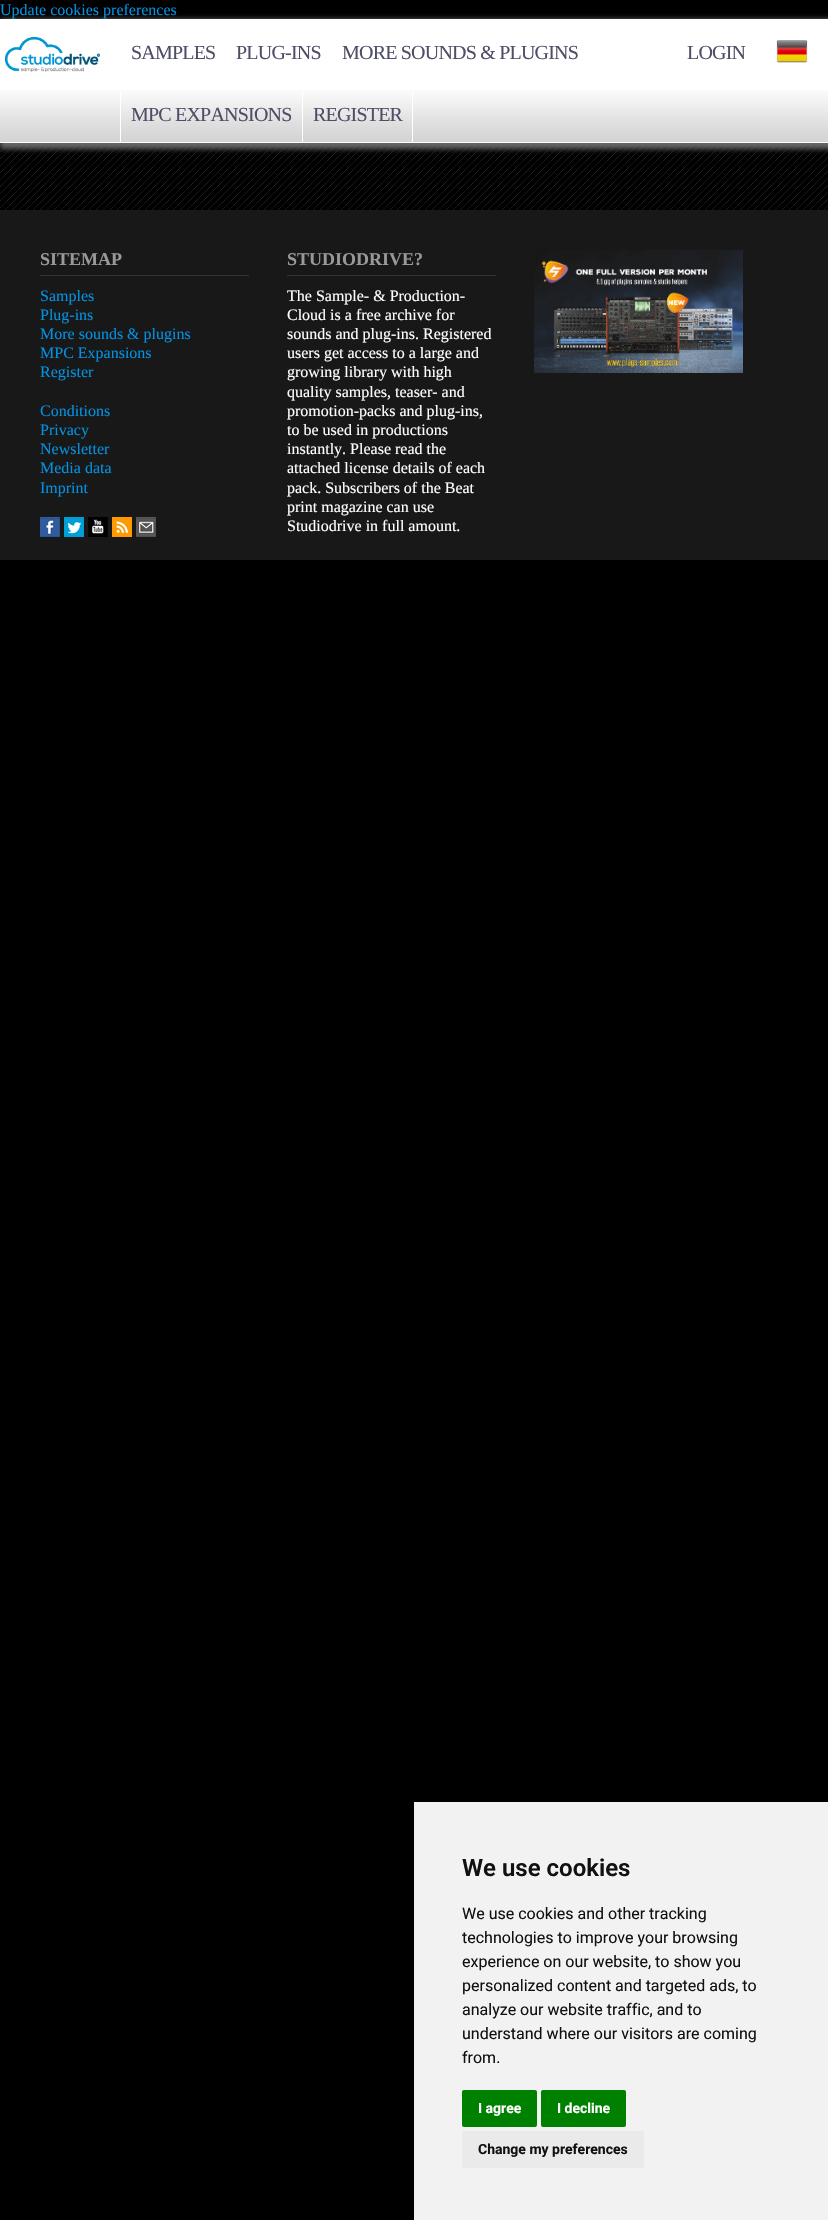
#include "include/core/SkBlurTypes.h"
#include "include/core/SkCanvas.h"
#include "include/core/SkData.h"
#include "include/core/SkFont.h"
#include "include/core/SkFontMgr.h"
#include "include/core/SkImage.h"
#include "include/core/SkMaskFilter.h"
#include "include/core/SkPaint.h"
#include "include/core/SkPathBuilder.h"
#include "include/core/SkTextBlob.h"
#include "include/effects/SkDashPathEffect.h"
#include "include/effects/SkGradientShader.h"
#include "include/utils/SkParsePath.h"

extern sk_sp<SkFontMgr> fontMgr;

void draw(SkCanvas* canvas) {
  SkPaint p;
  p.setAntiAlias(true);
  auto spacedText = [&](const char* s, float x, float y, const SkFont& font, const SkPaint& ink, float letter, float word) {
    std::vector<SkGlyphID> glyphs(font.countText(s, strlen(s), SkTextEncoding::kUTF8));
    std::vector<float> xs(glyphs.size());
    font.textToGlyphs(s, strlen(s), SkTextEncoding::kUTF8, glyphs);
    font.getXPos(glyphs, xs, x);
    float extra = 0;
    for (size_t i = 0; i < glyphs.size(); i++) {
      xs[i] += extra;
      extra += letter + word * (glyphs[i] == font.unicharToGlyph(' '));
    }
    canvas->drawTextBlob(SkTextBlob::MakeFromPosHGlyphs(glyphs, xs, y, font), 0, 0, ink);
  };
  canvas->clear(SK_ColorBLACK);
  canvas->drawImageRect(SkImages::DeferredFromEncodedData(SkData::MakeFromFileName("images/1.png")), SkRect::MakeLTRB(0, 143, 828, 210), SkSamplingOptions());
  p.setColor(SkColorSetRGB(102, 102, 102));
  p.setMaskFilter(SkMaskFilter::MakeBlur(kNormal_SkBlurStyle, 2.5f));
  canvas->drawRect(SkRect::MakeLTRB(0, 19, 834, 149), p);
  p.setMaskFilter(nullptr);
  p.setColor(SK_ColorWHITE);
  canvas->drawRect(SkRect::MakeLTRB(0, 19, 828, 143), p);
  canvas->drawImageRect(SkImages::DeferredFromEncodedData(SkData::MakeFromFileName("images/2.png")), SkRect::MakeLTRB(0, 90, 828, 142), SkSamplingOptions());
  canvas->drawImageRect(SkImages::DeferredFromEncodedData(SkData::MakeFromFileName("images/3.png")), SkRect::MakeLTRB(5, 37, 100, 72), SkSamplingOptions());
  canvas->drawRect(SkRect::MakeLTRB(120, 90, 121, 143), p);
  canvas->drawRect(SkRect::MakeLTRB(412, 90, 413, 143), p);
  canvas->drawRect(SkRect::MakeLTRB(302, 90, 303, 143), p);
  canvas->drawImageRect(SkImages::DeferredFromEncodedData(SkData::MakeFromFileName("images/4.png")), SkRect::MakeLTRB(776, 40, 808, 63), SkSamplingOptions());
  p.setColor(SkColorSetRGB(24, 24, 24));
  canvas->drawRect(SkRect::MakeLTRB(0, 210, 828, 560), p);
  p.setColor(SkColorSetRGB(51, 51, 51));
  canvas->drawRect(SkRect::MakeLTRB(40, 275, 249, 276), p);
  canvas->drawImageRect(SkImages::DeferredFromEncodedData(SkData::MakeFromFileName("images/5.png")), SkRect::MakeLTRB(40, 517, 60, 537), SkSamplingOptions());
  canvas->drawImageRect(SkImages::DeferredFromEncodedData(SkData::MakeFromFileName("images/6.png")), SkRect::MakeLTRB(64, 517, 84, 537), SkSamplingOptions());
  canvas->drawImageRect(SkImages::DeferredFromEncodedData(SkData::MakeFromFileName("images/7.png")), SkRect::MakeLTRB(88, 517, 108, 537), SkSamplingOptions());
  canvas->drawImageRect(SkImages::DeferredFromEncodedData(SkData::MakeFromFileName("images/8.png")), SkRect::MakeLTRB(112, 517, 132, 537), SkSamplingOptions());
  canvas->drawImageRect(SkImages::DeferredFromEncodedData(SkData::MakeFromFileName("images/9.png")), SkRect::MakeLTRB(136, 517, 156, 537), SkSamplingOptions());
  canvas->drawRect(SkRect::MakeLTRB(287, 275, 496, 276), p);
  canvas->drawImageRect(SkImages::DeferredFromEncodedData(SkData::MakeFromFileName("images/10.png")), SkRect::MakeLTRB(534, 250, 743, 373), SkSamplingOptions());
  p.setColor(SkColorSetRGB(242, 242, 242));
  canvas->drawRect(SkRect::MakeLTRB(414, 1802, 828, 2220), p);
  p.setColor(SkColorSetRGB(0, 128, 0));
  canvas->drawRoundRect(SkRect::MakeLTRB(462, 2090, 537, 2127), 2, 2, p);
  canvas->drawRoundRect(SkRect::MakeLTRB(541, 2090, 626, 2127), 2, 2, p);
  p.setColor(SkColorSetRGB(234, 234, 234));
  canvas->drawRoundRect(SkRect::MakeLTRB(462, 2131, 644, 2168), 2, 2, p);
  SkFont font1(fontMgr->matchFamilyStyle("Liberation Serif", SkFontStyle::Normal()), 16);
  font1.setSubpixel(true);
  p.setColor(SkColorSetRGB(3, 145, 225));
  canvas->drawString("Update cookies preferences", 0, 15, font1, p);
  SkFont font2(fontMgr->matchFamilyStyle("Liberation Serif", SkFontStyle::Normal()), 20);
  font2.setSubpixel(true);
  p.setColor(SkColorSetRGB(78, 78, 103));
  spacedText("SAMPLES", 131, 59, font2, p, -0.8f, 0);
  spacedText("PLUG-INS", 236, 59, font2, p, -0.8f, 0);
  spacedText("MORE SOUNDS & PLUGINS", 342, 59, font2, p, -0.8f, 0);
  spacedText("MPC EXPANSIONS", 131, 121, font2, p, -0.8f, 0);
  spacedText("REGISTER", 313, 121, font2, p, -0.8f, 0);
  spacedText("LOGIN", 687, 59, font2, p, -0.8f, 0);
  SkFont font3(fontMgr->matchFamilyStyle("Liberation Serif", SkFontStyle::Bold()), 18);
  font3.setSubpixel(true);
  p.setColor(SkColorSetRGB(153, 153, 153));
  canvas->drawString("SITEMAP", 40, 265, font3, p);
  p.setColor(SkColorSetRGB(3, 145, 225));
  canvas->drawString("Samples", 40, 301, font1, p);
  canvas->drawString("Plug-ins", 40, 320, font1, p);
  canvas->drawString("More sounds & plugins", 40, 339, font1, p);
  canvas->drawString("MPC Expansions", 40, 358, font1, p);
  canvas->drawString("Register", 40, 377, font1, p);
  canvas->drawString("Conditions", 40, 416, font1, p);
  canvas->drawString("Privacy", 40, 435, font1, p);
  canvas->drawString("Newsletter", 40, 454, font1, p);
  canvas->drawString("Media data", 40, 473, font1, p);
  canvas->drawString("Imprint", 40, 493, font1, p);
  p.setColor(SkColorSetRGB(153, 153, 153));
  canvas->drawString("STUDIODRIVE?", 287, 265, font3, p);
  p.setColor(SK_ColorWHITE);
  canvas->drawString("The Sample- & Production-", 287, 301, font1, p);
  canvas->drawString("Cloud is a free archive for", 287, 320, font1, p);
  canvas->drawString("sounds and plug-ins. Registered", 287, 339, font1, p);
  canvas->drawString("users get access to a large and", 287, 358, font1, p);
  canvas->drawString("growing library with high", 287, 377, font1, p);
  canvas->drawString("quality samples, teaser- and", 287, 397, font1, p);
  canvas->drawString("promotion-packs and plug-ins,", 287, 416, font1, p);
  canvas->drawString("to be used in productions", 287, 435, font1, p);
  canvas->drawString("instantly. Please read the", 287, 454, font1, p);
  canvas->drawString("attached license details of each", 287, 473, font1, p);
  canvas->drawString("pack. Subscribers of the Beat", 287, 493, font1, p);
  canvas->drawString("print magazine can use", 287, 512, font1, p);
  canvas->drawString("Studiodrive in full amount.", 287, 531, font1, p);
  SkFont font4(fontMgr->matchFamilyStyle("Roboto", SkFontStyle(600, SkFontStyle::kNormal_Width, SkFontStyle::kUpright_Slant)), 24);
  font4.setSubpixel(true);
  p.setColor(SkColorSetRGB(17, 17, 17));
  canvas->drawString("We use cookies", 462, 1876, font4, p);
  SkFont font5(fontMgr->matchFamilyStyle("Roboto", SkFontStyle::Normal()), 16);
  font5.setSubpixel(true);
  canvas->drawString("We use cookies and other tracking", 462, 1919, font5, p);
  canvas->drawString("technologies to improve your browsing", 462, 1943, font5, p);
  canvas->drawString("experience on our website, to show you", 462, 1967, font5, p);
  canvas->drawString("personalized content and targeted ads, to", 462, 1991, font5, p);
  canvas->drawString("analyze our website traffic, and to", 462, 2015, font5, p);
  canvas->drawString("understand where our visitors are coming", 462, 2039, font5, p);
  canvas->drawString("from.", 462, 2063, font5, p);
  SkFont font6(fontMgr->matchFamilyStyle("Roboto", SkFontStyle::Bold()), 14);
  font6.setSubpixel(true);
  p.setColor(SK_ColorWHITE);
  canvas->drawString("I agree", 478, 2113, font6, p);
  canvas->drawString("I decline", 557, 2113, font6, p);
  p.setColor(SkColorSetRGB(17, 17, 17));
  canvas->drawString("Change my preferences", 478, 2154, font6, p);
}
